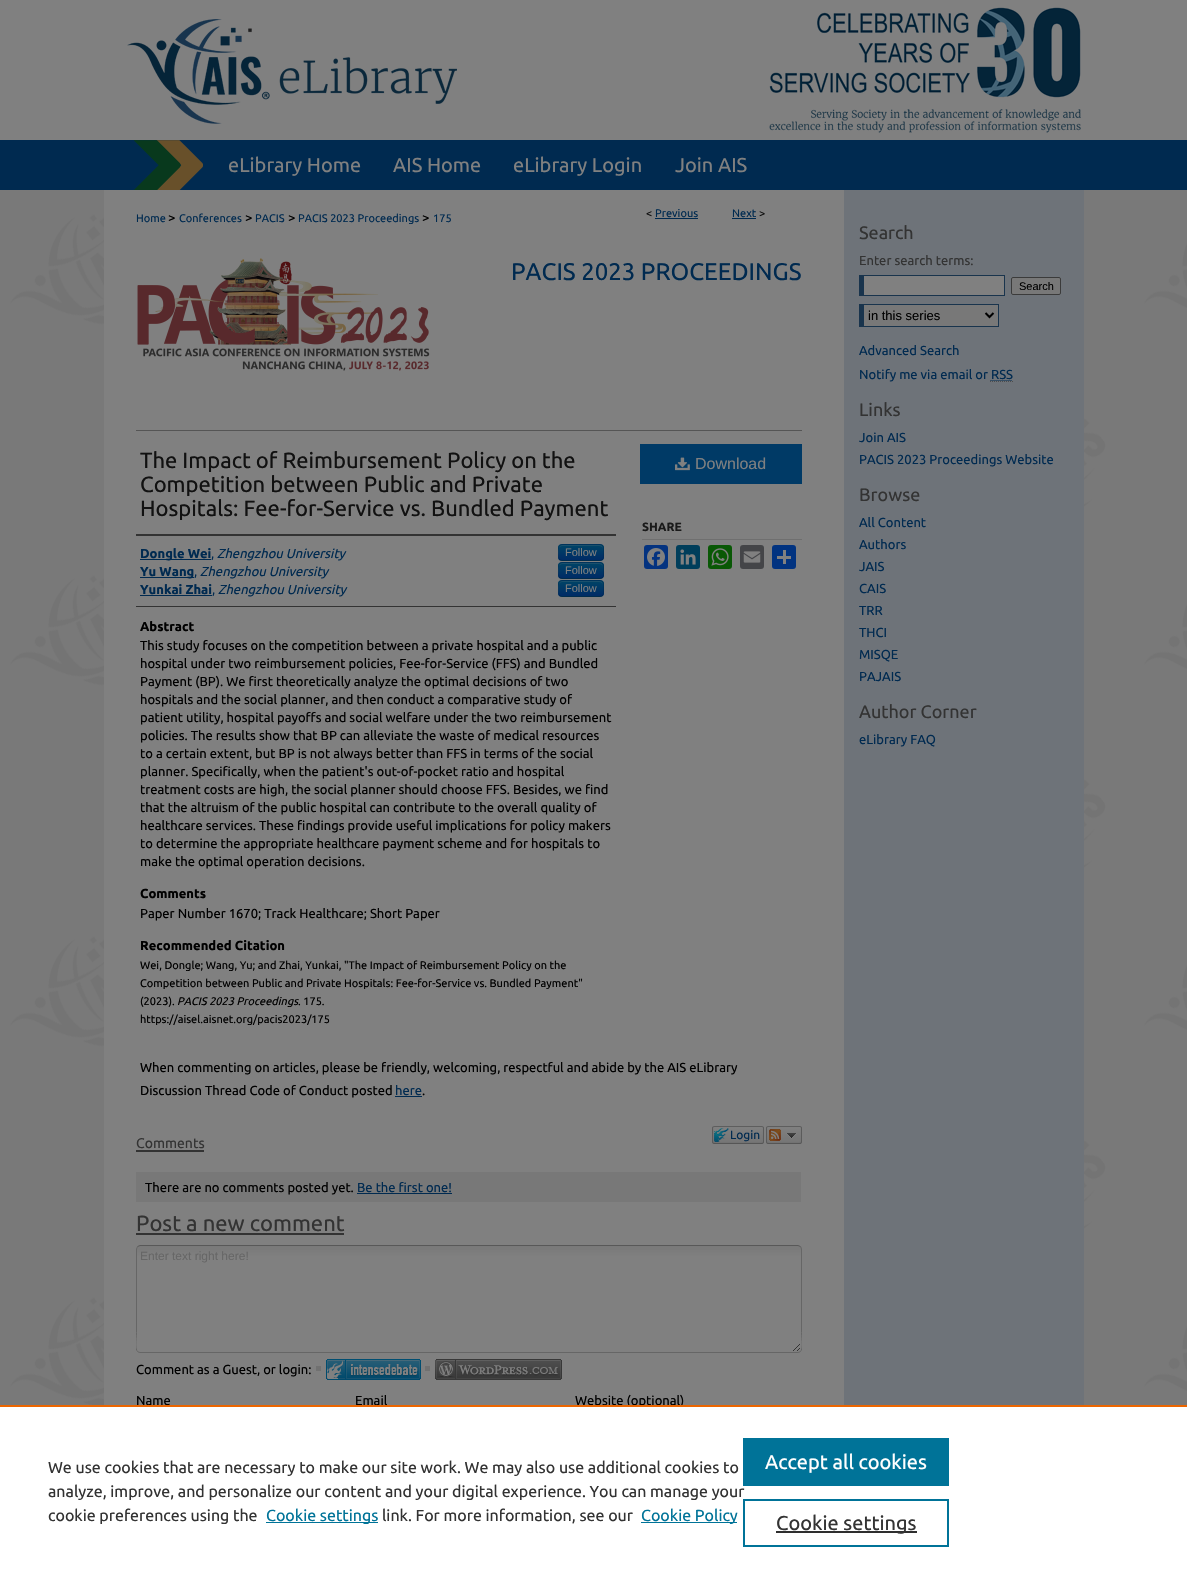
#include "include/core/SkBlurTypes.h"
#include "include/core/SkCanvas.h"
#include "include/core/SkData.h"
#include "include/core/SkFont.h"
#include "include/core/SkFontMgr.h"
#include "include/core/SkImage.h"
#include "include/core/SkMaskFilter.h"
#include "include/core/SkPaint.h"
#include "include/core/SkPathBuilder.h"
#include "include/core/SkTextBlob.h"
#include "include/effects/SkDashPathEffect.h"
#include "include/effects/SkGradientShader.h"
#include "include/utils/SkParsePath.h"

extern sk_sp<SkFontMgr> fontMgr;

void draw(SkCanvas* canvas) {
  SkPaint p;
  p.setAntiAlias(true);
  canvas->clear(SK_ColorWHITE);
  canvas->drawImageRect(SkImages::DeferredFromEncodedData(SkData::MakeFromFileName("images/1.png")), SkRect::MakeLTRB(0, 0, 1187, 1405), SkSamplingOptions());
  canvas->drawImageRect(SkImages::DeferredFromEncodedData(SkData::MakeFromFileName("images/2.png")), SkRect::MakeLTRB(127, 7, 1081, 133), SkSamplingOptions());
  canvas->drawImageRect(SkImages::DeferredFromEncodedData(SkData::MakeFromFileName("images/3.png")), SkRect::MakeLTRB(134, 140, 203, 190), SkSamplingOptions());
  canvas->drawImageRect(SkImages::DeferredFromEncodedData(SkData::MakeFromFileName("images/4.png")), SkRect::MakeLTRB(104, 190, 1084, 1405), SkSamplingOptions());
  p.setColor(SkColorSetRGB(0, 42, 80));
  canvas->drawRect(SkRect::MakeLTRB(655, 218, 698, 219), p);
  canvas->drawRect(SkRect::MakeLTRB(732, 218, 756, 219), p);
  canvas->drawImageRect(SkImages::DeferredFromEncodedData(SkData::MakeFromFileName("images/5.png")), SkRect::MakeLTRB(137, 258, 430, 371), SkSamplingOptions());
  p.setColor(SkColorSetRGB(85, 85, 85));
  canvas->drawRect(SkRect::MakeLTRB(136, 430, 802, 431), p);
  p.setColor(SkColorSetRGB(51, 51, 51));
  canvas->drawRect(SkRect::MakeLTRB(136, 534, 616, 536), p);
  canvas->drawRect(SkRect::MakeLTRB(136, 606, 616, 607), p);
  p.setColor(SkColorSetRGB(0, 42, 80));
  canvas->drawRect(SkRect::MakeLTRB(140, 559, 211, 560), p);
  p.setColor(SkColorSetRGB(0, 58, 102));
  canvas->drawRoundRect(SkRect::MakeLTRB(558, 544, 604, 561), 4, 4, p);
  canvas->save();
  canvas->clipPath(SkPathBuilder().moveTo(562, 544).lineTo(600, 544).cubicTo(602, 544, 604, 546, 604, 548).lineTo(604, 557).cubicTo(604, 559, 602, 561, 600, 561).lineTo(562, 561).cubicTo(560, 561, 558, 559, 558, 557).lineTo(558, 548).cubicTo(558, 546, 560, 544, 562, 544).close().detach(), true);
  {
    const SkColor colors[] = {SkColorSetRGB(0, 68, 102), SkColorSetRGB(0, 43, 102)};
    const float stops[] = {0, 1};
    const SkPoint ends[] = {{581, 545}, {581, 560}};
    p.setShader(SkGradientShader::MakeLinear(ends, colors, stops, 2, SkTileMode::kClamp));
    p.setAlpha(255);
  }
  canvas->drawRect(SkRect::MakeLTRB(558, 545, 604, 560), p);
  canvas->restore();
  p.setShader(nullptr);
  p.setColor(SkColorSetARGB(51, 128, 128, 128));
  canvas->drawPath(SkPathBuilder().moveTo(562, 546).lineTo(595, 546).cubicTo(602, 546, 603, 546, 603, 552).lineTo(603, 558).lineTo(603, 551).cubicTo(603, 544, 601, 545, 594, 545).lineTo(568, 545).cubicTo(561, 545, 559, 544, 559, 551).lineTo(559, 559).cubicTo(559, 556, 557, 546, 562, 546).close().detach(), p);
  p.setStyle(SkPaint::kStroke_Style);
  p.setStrokeWidth(1);
  p.setColor(SkColorSetARGB(64, 0, 0, 0));
  canvas->drawPath(SkPathBuilder().moveTo(602.5f, 559.5f).cubicTo(602, 560, 601, 560.5f, 600, 560.5f).lineTo(562, 560.5f).cubicTo(561, 560.5f, 560, 560, 559.5f, 559.5f).detach(), p);
  p.setColor(SkColorSetARGB(26, 0, 0, 0));
  canvas->drawPath(SkPathBuilder().moveTo(559.5f, 559.5f).cubicTo(558, 557.5f, 558.5f, 554.5f, 558.5f, 552.5f).cubicTo(558.5f, 543.5f, 559, 544.5f, 568.5f, 544.5f).lineTo(593.5f, 544.5f).cubicTo(603, 544.5f, 603.5f, 543.5f, 603.5f, 552.5f).cubicTo(603.5f, 554.5f, 604, 557.5f, 602.5f, 559.5f).detach(), p);
  p.setStyle(SkPaint::kFill_Style);
  p.setColor(SkColorSetRGB(0, 42, 80));
  canvas->drawRect(SkRect::MakeLTRB(140, 577, 194, 578), p);
  p.setColor(SkColorSetRGB(0, 58, 102));
  canvas->drawRoundRect(SkRect::MakeLTRB(558, 562, 604, 579), 4, 4, p);
  canvas->save();
  canvas->clipPath(SkPathBuilder().moveTo(562, 562).lineTo(600, 562).cubicTo(602, 562, 604, 564, 604, 566).lineTo(604, 575).cubicTo(604, 577, 602, 579, 600, 579).lineTo(562, 579).cubicTo(560, 579, 558, 577, 558, 575).lineTo(558, 566).cubicTo(558, 564, 560, 562, 562, 562).close().detach(), true);
  {
    const SkColor colors[] = {SkColorSetRGB(0, 68, 102), SkColorSetRGB(0, 43, 102)};
    const float stops[] = {0, 1};
    const SkPoint ends[] = {{581, 563}, {581, 578}};
    p.setShader(SkGradientShader::MakeLinear(ends, colors, stops, 2, SkTileMode::kClamp));
    p.setAlpha(255);
  }
  canvas->drawRect(SkRect::MakeLTRB(558, 563, 604, 578), p);
  canvas->restore();
  p.setShader(nullptr);
  p.setColor(SkColorSetARGB(51, 128, 128, 128));
  canvas->drawPath(SkPathBuilder().moveTo(562, 564).lineTo(595, 564).cubicTo(602, 564, 603, 564, 603, 570).lineTo(603, 576).lineTo(603, 569).cubicTo(603, 562, 601, 563, 594, 563).lineTo(568, 563).cubicTo(561, 563, 559, 562, 559, 569).lineTo(559, 577).cubicTo(559, 574, 557, 564, 562, 564).close().detach(), p);
  p.setStyle(SkPaint::kStroke_Style);
  p.setColor(SkColorSetARGB(64, 0, 0, 0));
  canvas->drawPath(SkPathBuilder().moveTo(602.5f, 577.5f).cubicTo(602, 578, 601, 578.5f, 600, 578.5f).lineTo(562, 578.5f).cubicTo(561, 578.5f, 560, 578, 559.5f, 577.5f).detach(), p);
  p.setColor(SkColorSetARGB(26, 0, 0, 0));
  canvas->drawPath(SkPathBuilder().moveTo(559.5f, 577.5f).cubicTo(558, 575.5f, 558.5f, 572.5f, 558.5f, 570.5f).cubicTo(558.5f, 561.5f, 559, 562.5f, 568.5f, 562.5f).lineTo(593.5f, 562.5f).cubicTo(603, 562.5f, 603.5f, 561.5f, 603.5f, 570.5f).cubicTo(603.5f, 572.5f, 604, 575.5f, 602.5f, 577.5f).detach(), p);
  p.setStyle(SkPaint::kFill_Style);
  p.setColor(SkColorSetRGB(0, 42, 80));
  canvas->drawRect(SkRect::MakeLTRB(140, 595, 212, 596), p);
  p.setColor(SkColorSetRGB(0, 58, 102));
  canvas->drawRoundRect(SkRect::MakeLTRB(558, 580, 604, 597), 4, 4, p);
  canvas->save();
  canvas->clipPath(SkPathBuilder().moveTo(562, 580).lineTo(600, 580).cubicTo(602, 580, 604, 582, 604, 584).lineTo(604, 593).cubicTo(604, 595, 602, 597, 600, 597).lineTo(562, 597).cubicTo(560, 597, 558, 595, 558, 593).lineTo(558, 584).cubicTo(558, 582, 560, 580, 562, 580).close().detach(), true);
  {
    const SkColor colors[] = {SkColorSetRGB(0, 68, 102), SkColorSetRGB(0, 43, 102)};
    const float stops[] = {0, 1};
    const SkPoint ends[] = {{581, 581}, {581, 596}};
    p.setShader(SkGradientShader::MakeLinear(ends, colors, stops, 2, SkTileMode::kClamp));
    p.setAlpha(255);
  }
  canvas->drawRect(SkRect::MakeLTRB(558, 581, 604, 596), p);
  canvas->restore();
  p.setShader(nullptr);
  p.setColor(SkColorSetARGB(51, 128, 128, 128));
  canvas->drawPath(SkPathBuilder().moveTo(562, 582).lineTo(595, 582).cubicTo(602, 582, 603, 582, 603, 588).lineTo(603, 594).lineTo(603, 587).cubicTo(603, 580, 601, 581, 594, 581).lineTo(568, 581).cubicTo(561, 581, 559, 580, 559, 587).lineTo(559, 595).cubicTo(559, 592, 557, 582, 562, 582).close().detach(), p);
  p.setStyle(SkPaint::kStroke_Style);
  p.setColor(SkColorSetARGB(64, 0, 0, 0));
  canvas->drawPath(SkPathBuilder().moveTo(602.5f, 595.5f).cubicTo(602, 596, 601, 596.5f, 600, 596.5f).lineTo(562, 596.5f).cubicTo(561, 596.5f, 560, 596, 559.5f, 595.5f).detach(), p);
  p.setColor(SkColorSetARGB(26, 0, 0, 0));
  canvas->drawPath(SkPathBuilder().moveTo(559.5f, 595.5f).cubicTo(558, 593.5f, 558.5f, 590.5f, 558.5f, 588.5f).cubicTo(558.5f, 579.5f, 559, 580.5f, 568.5f, 580.5f).lineTo(593.5f, 580.5f).cubicTo(603, 580.5f, 603.5f, 579.5f, 603.5f, 588.5f).cubicTo(603.5f, 590.5f, 604, 593.5f, 602.5f, 595.5f).detach(), p);
  p.setStyle(SkPaint::kFill_Style);
  p.setColor(SkColorSetRGB(0, 58, 102));
  canvas->drawRect(SkRect::MakeLTRB(640, 444, 802, 484), p);
  canvas->drawImageRect(SkImages::DeferredFromEncodedData(SkData::MakeFromFileName("images/6.png")), SkRect::MakeLTRB(675, 457, 690, 471), SkSamplingOptions());
  p.setColor(SkColorSetRGB(111, 111, 111));
  canvas->drawRect(SkRect::MakeLTRB(642, 539, 802, 540), p);
  p.setColor(SkColorSetRGB(4, 51, 128));
  canvas->drawRoundRect(SkRect::MakeLTRB(644, 545, 668, 569), 3, 3, p);
  canvas->drawImageRect(SkImages::DeferredFromEncodedData(SkData::MakeFromFileName("images/7.png")), SkRect::MakeLTRB(647, 548, 665, 566), SkSamplingOptions());
  p.setColor(SkColorSetRGB(0, 62, 91));
  canvas->drawRoundRect(SkRect::MakeLTRB(676, 545, 700, 569), 3, 3, p);
  canvas->drawImageRect(SkImages::DeferredFromEncodedData(SkData::MakeFromFileName("images/8.png")), SkRect::MakeLTRB(680, 549, 696, 565), SkSamplingOptions());
  p.setColor(SkColorSetRGB(9, 88, 5));
  canvas->drawRoundRect(SkRect::MakeLTRB(708, 545, 732, 569), 3, 3, p);
  canvas->drawImageRect(SkImages::DeferredFromEncodedData(SkData::MakeFromFileName("images/9.png")), SkRect::MakeLTRB(711, 548, 729, 566), SkSamplingOptions());
  p.setColor(SkColorSetRGB(68, 69, 72));
  canvas->drawRoundRect(SkRect::MakeLTRB(740, 545, 764, 569), 3, 3, p);
  canvas->drawImageRect(SkImages::DeferredFromEncodedData(SkData::MakeFromFileName("images/10.png")), SkRect::MakeLTRB(743, 551, 761, 563), SkSamplingOptions());
  p.setColor(SkColorSetRGB(1, 51, 128));
  canvas->drawRoundRect(SkRect::MakeLTRB(772, 545, 796, 569), 3, 3, p);
  p.setColor(SkColorSetRGB(128, 128, 128));
  canvas->drawRect(SkRect::MakeLTRB(783, 550, 786, 564), p);
  canvas->drawRect(SkRect::MakeLTRB(777, 556, 791, 559), p);
  p.setColor(SkColorSetRGB(0, 42, 80));
  canvas->drawRect(SkRect::MakeLTRB(395, 1096, 422, 1097), p);
  canvas->drawImageRect(SkImages::DeferredFromEncodedData(SkData::MakeFromFileName("images/11.png")), SkRect::MakeLTRB(712, 1126, 761, 1144), SkSamplingOptions());
  canvas->drawImageRect(SkImages::DeferredFromEncodedData(SkData::MakeFromFileName("images/12.png")), SkRect::MakeLTRB(761, 1126, 764, 1144), SkSamplingOptions());
  canvas->drawImageRect(SkImages::DeferredFromEncodedData(SkData::MakeFromFileName("images/13.png")), SkRect::MakeLTRB(766, 1126, 802, 1144), SkSamplingOptions());
  p.setColor(SkColorSetRGB(51, 51, 51));
  canvas->drawRect(SkRect::MakeLTRB(136, 1150, 204, 1152), p);
  p.setColor(SkColorSetRGB(120, 120, 120));
  canvas->drawRect(SkRect::MakeLTRB(136, 1172, 801, 1202), p);
  p.setColor(SkColorSetRGB(0, 42, 80));
  canvas->drawRect(SkRect::MakeLTRB(357, 1193, 452, 1194), p);
  p.setColor(SkColorSetRGB(51, 51, 51));
  canvas->drawRect(SkRect::MakeLTRB(136, 1233, 344, 1235), p);
  canvas->drawImageRect(SkImages::DeferredFromEncodedData(SkData::MakeFromFileName("images/14.png")), SkRect::MakeLTRB(137, 1246, 802, 1351), SkSamplingOptions());
  p.setStyle(SkPaint::kStroke_Style);
  p.setColor(SkColorSetRGB(88, 88, 88));
  canvas->drawPath(SkPathBuilder().moveTo(137.5f, 1246.5f).lineTo(140, 1245.5f).lineTo(798, 1245.5f).lineTo(800.5f, 1246.5f).detach(), p);
  canvas->save();
  canvas->clipRect(SkRect::MakeLTRB(136, 1245, 802, 1357));
  p.setColor(SkColorSetRGB(102, 102, 102));
  canvas->drawPath(SkPathBuilder().moveTo(800.5f, 1246.5f).lineTo(801.5f, 1249).lineTo(801.5f, 1332.5f).cubicTo(801.5f, 1339, 804.5f, 1352.5f, 798, 1352.5f).lineTo(140, 1352.5f).cubicTo(133.5f, 1352.5f, 136.5f, 1339, 136.5f, 1332.5f).lineTo(136.5f, 1249).lineTo(137.5f, 1246.5f).detach(), p);
  canvas->restore();
  p.setStyle(SkPaint::kFill_Style);
  p.setColor(SkColorSetRGB(113, 113, 113));
  canvas->drawRect(SkRect::MakeLTRB(316, 1366, 321, 1371), p);
  canvas->drawImageRect(SkImages::DeferredFromEncodedData(SkData::MakeFromFileName("images/15.png")), SkRect::MakeLTRB(326, 1359, 421, 1380), SkSamplingOptions());
  canvas->drawRect(SkRect::MakeLTRB(425, 1366, 430, 1371), p);
  canvas->drawImageRect(SkImages::DeferredFromEncodedData(SkData::MakeFromFileName("images/16.png")), SkRect::MakeLTRB(435, 1359, 562, 1380), SkSamplingOptions());
  p.setColor(SkColorSetRGB(128, 128, 128));
  canvas->drawRect(SkRect::MakeLTRB(864, 276, 1004, 295), p);
  p.setColor(SkColorSetRGB(25, 52, 77));
  canvas->drawRect(SkRect::MakeLTRB(859, 275, 1005, 276), p);
  canvas->drawRect(SkRect::MakeLTRB(1004, 275, 1005, 296), p);
  canvas->drawRect(SkRect::MakeLTRB(859, 295, 1005, 296), p);
  canvas->drawRect(SkRect::MakeLTRB(859, 275, 864, 296), p);
  p.setColor(SkColorSetRGB(120, 120, 120));
  canvas->drawRoundRect(SkRect::MakeLTRB(1011.5f, 277.5f, 1060.5f, 294.5f), 1.5f, 1.5f, p);
  p.setStyle(SkPaint::kStroke_Style);
  p.setColor(SkColorSetRGB(59, 59, 59));
  canvas->drawRoundRect(SkRect::MakeLTRB(1011.5f, 277.5f, 1060.5f, 294.5f), 1.5f, 1.5f, p);
  p.setStyle(SkPaint::kFill_Style);
  p.setColor(SkColorSetRGB(120, 120, 120));
  canvas->drawRect(SkRect::MakeLTRB(864, 305, 998, 326), p);
  p.setColor(SkColorSetRGB(25, 52, 77));
  canvas->drawRect(SkRect::MakeLTRB(859, 304, 999, 305), p);
  canvas->drawRect(SkRect::MakeLTRB(998, 304, 999, 327), p);
  canvas->drawRect(SkRect::MakeLTRB(859, 326, 999, 327), p);
  canvas->drawRect(SkRect::MakeLTRB(859, 304, 864, 327), p);
  p.setStyle(SkPaint::kStroke_Style);
  p.setStrokeWidth(2);
  p.setColor(SK_ColorBLACK);
  canvas->drawPath(SkPathBuilder().moveTo(985.5f, 313).lineTo(989.5f, 317).lineTo(993.5f, 313).detach(), p);
  p.setStrokeWidth(1);
  p.setColor(SkColorSetRGB(0, 42, 80));
  p.setPathEffect(SkDashPathEffect::Make({{1, 1}}, 0));
  canvas->drawPath(SkPathBuilder().moveTo(990.5f, 380.5f).lineTo(1012.5f, 380.5f).detach(), p);
  p.setPathEffect(nullptr);
  p.setStyle(SkPaint::kFill_Style);
  p.setColor(SkColorSetRGB(0, 115, 152));
  canvas->drawRect(SkRect::MakeLTRB(266, 1522, 378, 1523), p);
  canvas->drawRect(SkRect::MakeLTRB(641, 1522, 737, 1523), p);
  SkFont font1(fontMgr->matchFamilyStyle("Ubuntu", SkFontStyle::Normal()), 20);
  font1.setSubpixel(true);
  p.setColor(SkColorSetRGB(128, 128, 128));
  canvas->drawString("eLibrary Home", 228, 172, font1, p);
  canvas->drawString("AIS Home", 393, 172, font1, p);
  canvas->drawString("eLibrary Login", 513, 172, font1, p);
  canvas->drawString("Join AIS", 675, 172, font1, p);
  SkFont font2(fontMgr->matchFamilyStyle("Ubuntu", SkFontStyle::Normal()), 11);
  font2.setSubpixel(true);
  p.setColor(SkColorSetRGB(0, 42, 80));
  canvas->drawString("Home", 136, 222, font2, p);
  SkFont font3(fontMgr->matchFamilyStyle("Ubuntu", SkFontStyle::Normal()), 13);
  font3.setSubpixel(true);
  p.setColor(SK_ColorBLACK);
  canvas->drawString(">", 168, 222, font3, p);
  p.setColor(SkColorSetRGB(0, 42, 80));
  canvas->drawString("Conferences", 179, 222, font2, p);
  p.setColor(SK_ColorBLACK);
  canvas->drawString(">", 245, 222, font3, p);
  p.setColor(SkColorSetRGB(0, 42, 80));
  canvas->drawString("PACIS", 255, 222, font2, p);
  p.setColor(SK_ColorBLACK);
  canvas->drawString(">", 288, 222, font3, p);
  p.setColor(SkColorSetRGB(0, 42, 80));
  canvas->drawString("PACIS 2023 Proceedings", 298, 222, font2, p);
  p.setColor(SK_ColorBLACK);
  canvas->drawString(">", 422, 222, font3, p);
  p.setColor(SkColorSetRGB(0, 42, 80));
  canvas->drawString("175", 433, 222, font2, p);
  p.setColor(SkColorSetRGB(17, 17, 17));
  canvas->drawString("<", 646, 217, font2, p);
  p.setColor(SkColorSetRGB(0, 42, 80));
  canvas->drawString("Previous", 655, 217, font2, p);
  canvas->drawString("Next", 732, 217, font2, p);
  p.setColor(SkColorSetRGB(17, 17, 17));
  canvas->drawString(">", 759, 217, font2, p);
  SkFont font4(fontMgr->matchFamilyStyle("Ubuntu", SkFontStyle::Normal()), 24);
  font4.setSubpixel(true);
  p.setColor(SkColorSetRGB(0, 42, 80));
  canvas->drawString("PACIS 2023 PROCEEDINGS", 511, 280, font4, p);
  SkFont font5(fontMgr->matchFamilyStyle("Ubuntu", SkFontStyle::Normal()), 22);
  font5.setSubpixel(true);
  p.setColor(SkColorSetRGB(17, 17, 17));
  canvas->drawString("The Impact of Reimbursement Policy on the", 140, 468, font5, p);
  canvas->drawString("Competition between Public and Private", 140, 492, font5, p);
  canvas->drawString("Hospitals: Fee-for-Service vs. Bundled Payment", 140, 516, font5, p);
  SkFont font6(fontMgr->matchFamilyStyle("Ubuntu", SkFontStyle::Bold()), 13);
  font6.setSubpixel(true);
  p.setColor(SkColorSetRGB(0, 42, 80));
  canvas->drawString("Dongle Wei", 140, 558, font6, p);
  canvas->drawString(",", 211, 558, font3, p);
  SkFont font7(fontMgr->matchFamilyStyle("Ubuntu", SkFontStyle::Italic()), 13);
  font7.setSubpixel(true);
  canvas->drawString("Zhengzhou University", 217, 558, font7, p);
  SkFont font8(fontMgr->matchFamilyStyle("Liberation Sans", SkFontStyle::Normal()), 11);
  font8.setSubpixel(true);
  p.setColor(SkColorSetRGB(128, 128, 128));
  canvas->drawString("Follow", 565, 556, font8, p);
  p.setColor(SkColorSetRGB(0, 42, 80));
  canvas->drawString("Yu Wang", 140, 576, font6, p);
  canvas->drawString(",", 194, 576, font3, p);
  canvas->drawString("Zhengzhou University", 200, 576, font7, p);
  p.setColor(SkColorSetRGB(128, 128, 128));
  canvas->drawString("Follow", 565, 574, font8, p);
  p.setColor(SkColorSetRGB(0, 42, 80));
  canvas->drawString("Yunkai Zhai", 140, 594, font6, p);
  canvas->drawString(",", 212, 594, font3, p);
  canvas->drawString("Zhengzhou University", 218, 594, font7, p);
  p.setColor(SkColorSetRGB(128, 128, 128));
  canvas->drawString("Follow", 565, 592, font8, p);
  p.setColor(SK_ColorBLACK);
  canvas->drawString("Abstract", 140, 631, font6, p);
  canvas->drawString("This study focuses on the competition between a private hospital and a public", 140, 650, font3, p);
  canvas->drawString("hospital under two reimbursement policies, Fee-for-Service (FFS) and Bundled", 140, 668, font3, p);
  canvas->drawString("Payment (BP). We first theoretically analyze the optimal decisions of two", 140, 686, font3, p);
  canvas->drawString("hospitals and the social planner, and then conduct a comparative study of", 140, 704, font3, p);
  canvas->drawString("patient utility, hospital payoffs and social welfare under the two reimbursement", 140, 722, font3, p);
  canvas->drawString("policies. The results show that BP can alleviate the waste of medical resources", 140, 740, font3, p);
  canvas->drawString("to a certain extent, but BP is not always better than FFS in terms of the social", 140, 758, font3, p);
  canvas->drawString("planner. Specifically, when the patient's out-of-pocket ratio and hospital", 140, 776, font3, p);
  canvas->drawString("treatment costs are high, the social planner should choose FFS. Besides, we find", 140, 794, font3, p);
  canvas->drawString("that the altruism of the public hospital can contribute to the overall quality of", 140, 812, font3, p);
  canvas->drawString("healthcare services. These findings provide useful implications for policy makers", 140, 830, font3, p);
  canvas->drawString("to determine the appropriate healthcare payment scheme and for hospitals to", 140, 848, font3, p);
  canvas->drawString("make the optimal operation decisions.", 140, 866, font3, p);
  canvas->drawString("Comments", 140, 898, font6, p);
  canvas->drawString("Paper Number 1670; Track Healthcare; Short Paper", 140, 918, font3, p);
  canvas->drawString("Recommended Citation", 140, 950, font6, p);
  canvas->drawString("Wei, Dongle; Wang, Yu; and Zhai, Yunkai, \"The Impact of Reimbursement Policy on the", 140, 969, font2, p);
  canvas->drawString("Competition between Public and Private Hospitals: Fee-for-Service vs. Bundled Payment\"", 140, 987, font2, p);
  canvas->drawString("(2023).", 140, 1005, font2, p);
  SkFont font9(fontMgr->matchFamilyStyle("Ubuntu", SkFontStyle::Italic()), 11);
  font9.setSubpixel(true);
  canvas->drawString("PACIS 2023 Proceedings", 177, 1005, font9, p);
  canvas->drawString(". 175.", 298, 1005, font2, p);
  canvas->drawString("https://aisel.aisnet.org/pacis2023/175", 140, 1023, font2, p);
  SkFont font10(fontMgr->matchFamilyStyle("Liberation Sans", SkFontStyle::Normal()), 16);
  font10.setSubpixel(true);
  p.setColor(SkColorSetRGB(128, 128, 128));
  canvas->drawString("Download", 695, 469, font10, p);
  SkFont font11(fontMgr->matchFamilyStyle("Ubuntu", SkFontStyle::Bold()), 12);
  font11.setSubpixel(true);
  p.setColor(SkColorSetRGB(26, 26, 26));
  canvas->drawString("SHARE", 642, 531, font11, p);
  p.setColor(SK_ColorBLACK);
  canvas->drawString("When commenting on articles, please be friendly, welcoming, respectful and abide by the AIS eLibrary", 140, 1072, font3, p);
  canvas->drawString("Discussion Thread Code of Conduct posted", 140, 1095, font3, p);
  p.setColor(SkColorSetRGB(0, 42, 80));
  canvas->drawString("here", 395, 1095, font3, p);
  p.setColor(SK_ColorBLACK);
  canvas->drawString(".", 422, 1095, font3, p);
  SkFont font12(fontMgr->matchFamilyStyle("Ubuntu", SkFontStyle::Normal()), 12);
  font12.setSubpixel(true);
  p.setColor(SkColorSetRGB(0, 42, 80));
  canvas->drawString("Login", 730, 1139, font12, p);
  SkFont font13(fontMgr->matchFamilyStyle("Ubuntu", SkFontStyle::Normal()), 14);
  font13.setSubpixel(true);
  p.setColor(SkColorSetRGB(51, 51, 51));
  canvas->drawString("Comments", 136, 1148, font13, p);
  p.setColor(SK_ColorBLACK);
  canvas->drawString("There are no comments posted yet.", 145, 1192, font3, p);
  p.setColor(SkColorSetRGB(0, 42, 80));
  canvas->drawString("Be the first one!", 357, 1192, font3, p);
  p.setColor(SkColorSetRGB(51, 51, 51));
  canvas->drawString("Post a new comment", 136, 1231, font5, p);
  SkFont font14(fontMgr->matchFamilyStyle("Liberation Sans", SkFontStyle::Normal()), 12);
  font14.setSubpixel(true);
  p.setColor(SkColorSetRGB(102, 102, 102));
  canvas->drawString("Enter text right here!", 140, 1260, font14, p);
  p.setColor(SK_ColorBLACK);
  canvas->drawString("Comment as a Guest, or login:", 136, 1374, font3, p);
  canvas->drawString("Name", 136, 1405, font3, p);
  canvas->drawString("Email", 355, 1405, font3, p);
  canvas->drawString("Website (optional)", 575, 1405, font3, p);
  SkFont font15(fontMgr->matchFamilyStyle("Ubuntu", SkFontStyle::Normal()), 18);
  font15.setSubpixel(true);
  p.setColor(SkColorSetRGB(51, 51, 51));
  canvas->drawString("Search", 859, 239, font15, p);
  canvas->drawString("Enter search terms:", 859, 265, font3, p);
  p.setColor(SK_ColorBLACK);
  canvas->drawString("Search", 1019, 290, font8, p);
  SkFont font16(fontMgr->matchFamilyStyle("Liberation Sans", SkFontStyle::Normal()), 13);
  font16.setSubpixel(true);
  canvas->drawString("in this series", 868, 320, font16, p);
  p.setColor(SkColorSetRGB(0, 42, 80));
  canvas->drawString("Advanced Search", 859, 355, font3, p);
  canvas->drawString("Notify me via email or RSS", 859, 379, font3, p);
  p.setStyle(SkPaint::kStroke_Style);
  p.setColor(SkColorSetRGB(77, 77, 77));
  p.setPathEffect(SkDashPathEffect::Make({{1, 1}}, 0));
  canvas->drawPath(SkPathBuilder().moveTo(990, 381.5f).lineTo(1013, 381.5f).detach(), p);
  p.setPathEffect(nullptr);
  p.setStyle(SkPaint::kFill_Style);
  p.setColor(SkColorSetRGB(51, 51, 51));
  canvas->drawString("Links", 859, 416, font15, p);
  p.setColor(SkColorSetRGB(0, 42, 80));
  canvas->drawString("Join AIS", 859, 442, font3, p);
  canvas->drawString("PACIS 2023 Proceedings Website", 859, 464, font3, p);
  p.setColor(SkColorSetRGB(51, 51, 51));
  canvas->drawString("Browse", 859, 501, font15, p);
  p.setColor(SkColorSetRGB(0, 42, 80));
  canvas->drawString("All Content", 859, 527, font3, p);
  canvas->drawString("Authors", 859, 549, font3, p);
  canvas->drawString("JAIS", 859, 571, font3, p);
  canvas->drawString("CAIS", 859, 593, font3, p);
  canvas->drawString("TRR", 859, 615, font3, p);
  canvas->drawString("THCI", 859, 637, font3, p);
  canvas->drawString("MISQE", 859, 659, font3, p);
  canvas->drawString("PAJAIS", 859, 681, font3, p);
  p.setColor(SkColorSetRGB(51, 51, 51));
  canvas->drawString("Author Corner", 859, 718, font15, p);
  p.setColor(SkColorSetRGB(0, 42, 80));
  canvas->drawString("eLibrary FAQ", 859, 744, font3, p);
  p.setColor(SK_ColorWHITE);
  canvas->drawRect(SkRect::MakeLTRB(629, 1407, 682, 1408), p);
  p.setColor(SkColorSetRGB(235, 101, 0));
  canvas->drawRect(SkRect::MakeLTRB(0, 1405, 1187, 1407), p);
  SkFont font17(fontMgr->matchFamilyStyle("Ubuntu", SkFontStyle::Normal()), 16);
  font17.setSubpixel(true);
  p.setColor(SkColorSetRGB(51, 51, 51));
  canvas->drawString("We use cookies that are necessary to make our site work. We may also use additional cookies to", 48, 1473, font17, p);
  canvas->drawString("analyze, improve, and personalize our content and your digital experience. You can manage your", 48, 1497, font17, p);
  canvas->drawString("cookie preferences using the", 48, 1521, font17, p);
  p.setColor(SkColorSetRGB(0, 115, 152));
  canvas->drawString("Cookie settings", 266, 1521, font17, p);
  p.setColor(SkColorSetRGB(51, 51, 51));
  canvas->drawString("link. For more information, see our", 382, 1521, font17, p);
  p.setColor(SkColorSetRGB(0, 115, 152));
  canvas->drawString("Cookie Policy", 641, 1521, font17, p);
  canvas->drawRect(SkRect::MakeLTRB(743, 1438, 949, 1486), p);
  p.setColor(SK_ColorWHITE);
  canvas->drawString("Accept all cookies", 765, 1469, font1, p);
  p.setStyle(SkPaint::kStroke_Style);
  p.setStrokeWidth(2);
  p.setColor(SkColorSetRGB(0, 115, 152));
  canvas->drawRect(SkRect::MakeLTRB(744, 1500, 948, 1546), p);
  p.setStyle(SkPaint::kFill_Style);
  p.setColor(SkColorSetRGB(46, 46, 46));
  canvas->drawRect(SkRect::MakeLTRB(776, 1531, 917, 1533), p);
  p.setColor(SkColorSetRGB(51, 51, 51));
  canvas->drawString("Cookie settings", 776, 1530, font1, p);
}
